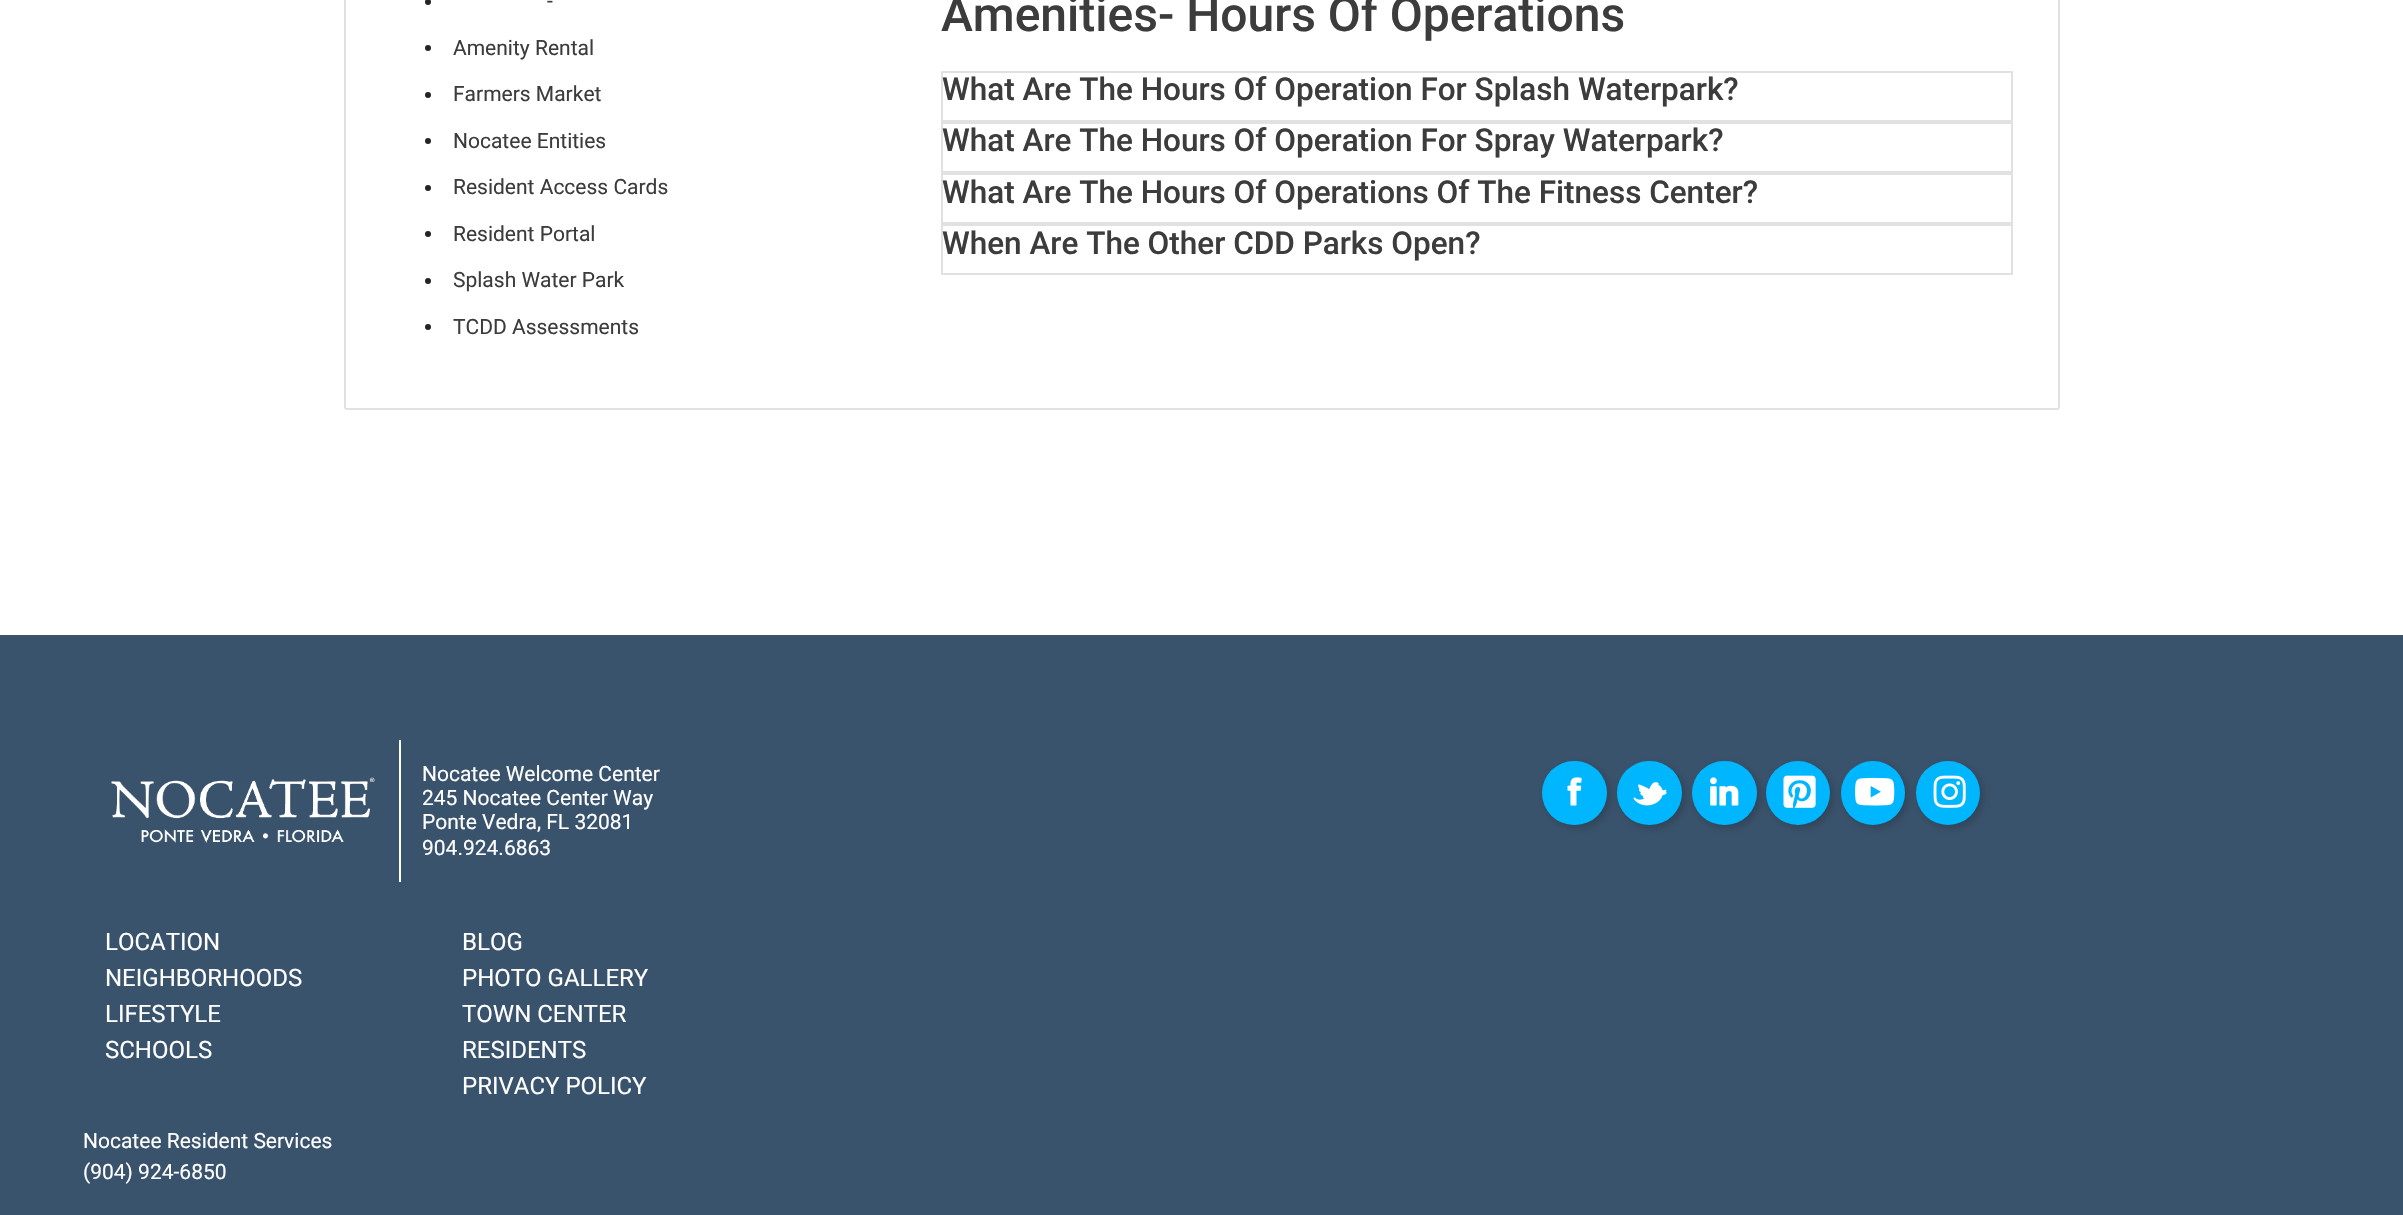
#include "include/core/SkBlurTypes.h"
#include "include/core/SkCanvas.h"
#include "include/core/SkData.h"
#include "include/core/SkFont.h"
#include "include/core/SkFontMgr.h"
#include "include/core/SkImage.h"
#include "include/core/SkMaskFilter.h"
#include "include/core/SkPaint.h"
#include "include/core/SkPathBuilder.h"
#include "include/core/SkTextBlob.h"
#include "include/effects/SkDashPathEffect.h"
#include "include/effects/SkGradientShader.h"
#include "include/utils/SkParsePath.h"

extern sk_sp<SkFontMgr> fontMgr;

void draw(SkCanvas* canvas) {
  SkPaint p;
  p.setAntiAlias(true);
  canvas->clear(SK_ColorWHITE);
  p.setStyle(SkPaint::kStroke_Style);
  p.setStrokeWidth(2);
  p.setColor(SkColorSetRGB(225, 225, 225));
  canvas->drawRoundRect(SkRect::MakeLTRB(345, -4, 2059, 409), 2, 2, p);
  p.setStyle(SkPaint::kFill_Style);
  p.setColor(SkColorSetRGB(33, 37, 41));
  canvas->drawCircle(428, 2, 3, p);
  canvas->drawCircle(428, 48, 3, p);
  canvas->drawCircle(428, 95, 3, p);
  canvas->drawCircle(428, 141, 3, p);
  canvas->drawCircle(428, 188, 3, p);
  canvas->drawCircle(428, 234, 3, p);
  canvas->drawCircle(428, 281, 3, p);
  canvas->drawCircle(428, 327, 3, p);
  p.setStyle(SkPaint::kStroke_Style);
  p.setColor(SkColorSetRGB(225, 225, 225));
  canvas->drawRect(SkRect::MakeLTRB(942, 72, 2012, 121), p);
  canvas->drawRect(SkRect::MakeLTRB(942, 123, 2012, 172), p);
  canvas->drawRect(SkRect::MakeLTRB(942, 174, 2012, 223), p);
  canvas->drawRect(SkRect::MakeLTRB(942, 225, 2012, 274), p);
  p.setStyle(SkPaint::kFill_Style);
  p.setColor(SkColorSetRGB(58, 83, 108));
  canvas->drawRect(SkRect::MakeLTRB(0, 635, 2403, 1215), p);
  canvas->drawImageRect(SkImages::DeferredFromEncodedData(SkData::MakeFromFileName("images/1.png")), SkRect::MakeLTRB(111, 777, 375, 843), SkSamplingOptions());
  p.setColor(SK_ColorWHITE);
  canvas->drawRect(SkRect::MakeLTRB(399, 740, 401, 882), p);
  p.setColor(SkColorSetARGB(51, 0, 0, 0));
  p.setMaskFilter(SkMaskFilter::MakeBlur(kNormal_SkBlurStyle, 4.5f));
  canvas->drawRoundRect(SkRect::MakeLTRB(1545, 764, 1610, 828), 32, 32, p);
  p.setMaskFilter(nullptr);
  p.setColor(SkColorSetRGB(0, 183, 255));
  canvas->drawRoundRect(SkRect::MakeLTRB(1542, 761, 1607, 825), 32, 32, p);
  canvas->drawImageRect(SkImages::DeferredFromEncodedData(SkData::MakeFromFileName("images/2.png")), SkRect::MakeLTRB(1567, 777, 1582, 806), SkSamplingOptions());
  p.setColor(SkColorSetARGB(51, 0, 0, 0));
  p.setMaskFilter(SkMaskFilter::MakeBlur(kNormal_SkBlurStyle, 4.5f));
  canvas->drawRoundRect(SkRect::MakeLTRB(1620, 764, 1685, 828), 32, 32, p);
  p.setMaskFilter(nullptr);
  p.setColor(SkColorSetRGB(0, 183, 255));
  canvas->drawRoundRect(SkRect::MakeLTRB(1617, 761, 1682, 825), 32, 32, p);
  canvas->drawImageRect(SkImages::DeferredFromEncodedData(SkData::MakeFromFileName("images/3.png")), SkRect::MakeLTRB(1633, 782, 1667, 806), SkSamplingOptions());
  p.setColor(SkColorSetARGB(51, 0, 0, 0));
  p.setMaskFilter(SkMaskFilter::MakeBlur(kNormal_SkBlurStyle, 4.5f));
  canvas->drawRoundRect(SkRect::MakeLTRB(1695, 764, 1760, 828), 32, 32, p);
  p.setMaskFilter(nullptr);
  p.setColor(SkColorSetRGB(0, 183, 255));
  canvas->drawRoundRect(SkRect::MakeLTRB(1692, 761, 1757, 825), 32, 32, p);
  canvas->drawImageRect(SkImages::DeferredFromEncodedData(SkData::MakeFromFileName("images/4.png")), SkRect::MakeLTRB(1710, 777, 1739, 806), SkSamplingOptions());
  p.setColor(SkColorSetARGB(51, 0, 0, 0));
  p.setMaskFilter(SkMaskFilter::MakeBlur(kNormal_SkBlurStyle, 4.5f));
  canvas->drawRoundRect(SkRect::MakeLTRB(1769, 764, 1833, 828), 32, 32, p);
  p.setMaskFilter(nullptr);
  p.setColor(SkColorSetRGB(0, 183, 255));
  canvas->drawCircle(1798, 793, 32, p);
  canvas->drawImageRect(SkImages::DeferredFromEncodedData(SkData::MakeFromFileName("images/5.png")), SkRect::MakeLTRB(1783, 775, 1816, 808), SkSamplingOptions());
  p.setColor(SkColorSetARGB(51, 0, 0, 0));
  p.setMaskFilter(SkMaskFilter::MakeBlur(kNormal_SkBlurStyle, 4.5f));
  canvas->drawRoundRect(SkRect::MakeLTRB(1844, 764, 1908, 828), 32, 32, p);
  p.setMaskFilter(nullptr);
  p.setColor(SkColorSetRGB(0, 183, 255));
  canvas->drawCircle(1873, 793, 32, p);
  canvas->drawImageRect(SkImages::DeferredFromEncodedData(SkData::MakeFromFileName("images/6.png")), SkRect::MakeLTRB(1855, 777, 1895, 806), SkSamplingOptions());
  p.setColor(SkColorSetARGB(51, 0, 0, 0));
  p.setMaskFilter(SkMaskFilter::MakeBlur(kNormal_SkBlurStyle, 4.5f));
  canvas->drawRoundRect(SkRect::MakeLTRB(1919, 764, 1983, 828), 32, 32, p);
  p.setMaskFilter(nullptr);
  p.setColor(SkColorSetRGB(0, 183, 255));
  canvas->drawCircle(1948, 793, 32, p);
  canvas->drawImageRect(SkImages::DeferredFromEncodedData(SkData::MakeFromFileName("images/7.png")), SkRect::MakeLTRB(1933, 775, 1966, 808), SkSamplingOptions());
  SkFont font1(fontMgr->matchFamilyStyle("Roboto", SkFontStyle::Normal()), 21);
  font1.setSubpixel(true);
  p.setColor(SkColorSetRGB(60, 60, 60));
  canvas->drawString("-", 547, 8, font1, p);
  canvas->drawString("Amenity Rental", 453, 55, font1, p);
  canvas->drawString("Farmers Market", 453, 101, font1, p);
  canvas->drawString("Nocatee Entities", 453, 148, font1, p);
  canvas->drawString("Resident Access Cards", 453, 194, font1, p);
  canvas->drawString("Resident Portal", 453, 241, font1, p);
  canvas->drawString("Splash Water Park", 453, 287, font1, p);
  canvas->drawString("TCDD Assessments", 453, 334, font1, p);
  SkFont font2(fontMgr->matchFamilyStyle("Roboto", SkFontStyle(500, SkFontStyle::kNormal_Width, SkFontStyle::kUpright_Slant)), 48);
  font2.setSubpixel(true);
  canvas->drawString("Amenities- Hours Of Operations", 941, 31, font2, p);
  SkFont font3(fontMgr->matchFamilyStyle("Roboto", SkFontStyle(500, SkFontStyle::kNormal_Width, SkFontStyle::kUpright_Slant)), 31.5f);
  font3.setSubpixel(true);
  canvas->drawString("What Are The Hours Of Operation For Splash Waterpark?", 942, 100, font3, p);
  canvas->drawString("What Are The Hours Of Operation For Spray Waterpark?", 942, 151, font3, p);
  canvas->drawString("What Are The Hours Of Operations Of The Fitness Center?", 942, 203, font3, p);
  canvas->drawString("When Are The Other CDD Parks Open?", 942, 254, font3, p);
  p.setColor(SK_ColorWHITE);
  canvas->drawString("Nocatee Welcome Center", 422, 781, font1, p);
  canvas->drawString("245 Nocatee Center Way", 422, 805, font1, p);
  canvas->drawString("Ponte Vedra, FL 32081", 422, 829, font1, p);
  canvas->drawString("904.924.6863", 422, 855, font1, p);
  SkFont font4(fontMgr->matchFamilyStyle("Roboto", SkFontStyle::Normal()), 24);
  font4.setSubpixel(true);
  canvas->drawString("LOCATION", 105, 950, font4, p);
  canvas->drawString("NEIGHBORHOODS", 105, 986, font4, p);
  canvas->drawString("LIFESTYLE", 105, 1022, font4, p);
  canvas->drawString("SCHOOLS", 105, 1058, font4, p);
  canvas->drawString("BLOG", 462, 950, font4, p);
  canvas->drawString("PHOTO GALLERY", 462, 986, font4, p);
  canvas->drawString("TOWN CENTER", 462, 1022, font4, p);
  canvas->drawString("RESIDENTS", 462, 1058, font4, p);
  canvas->drawString("PRIVACY POLICY", 462, 1094, font4, p);
  canvas->drawString("Nocatee Resident Services", 83, 1148, font1, p);
  canvas->drawString("(904) 924-6850", 83, 1179, font1, p);
}
